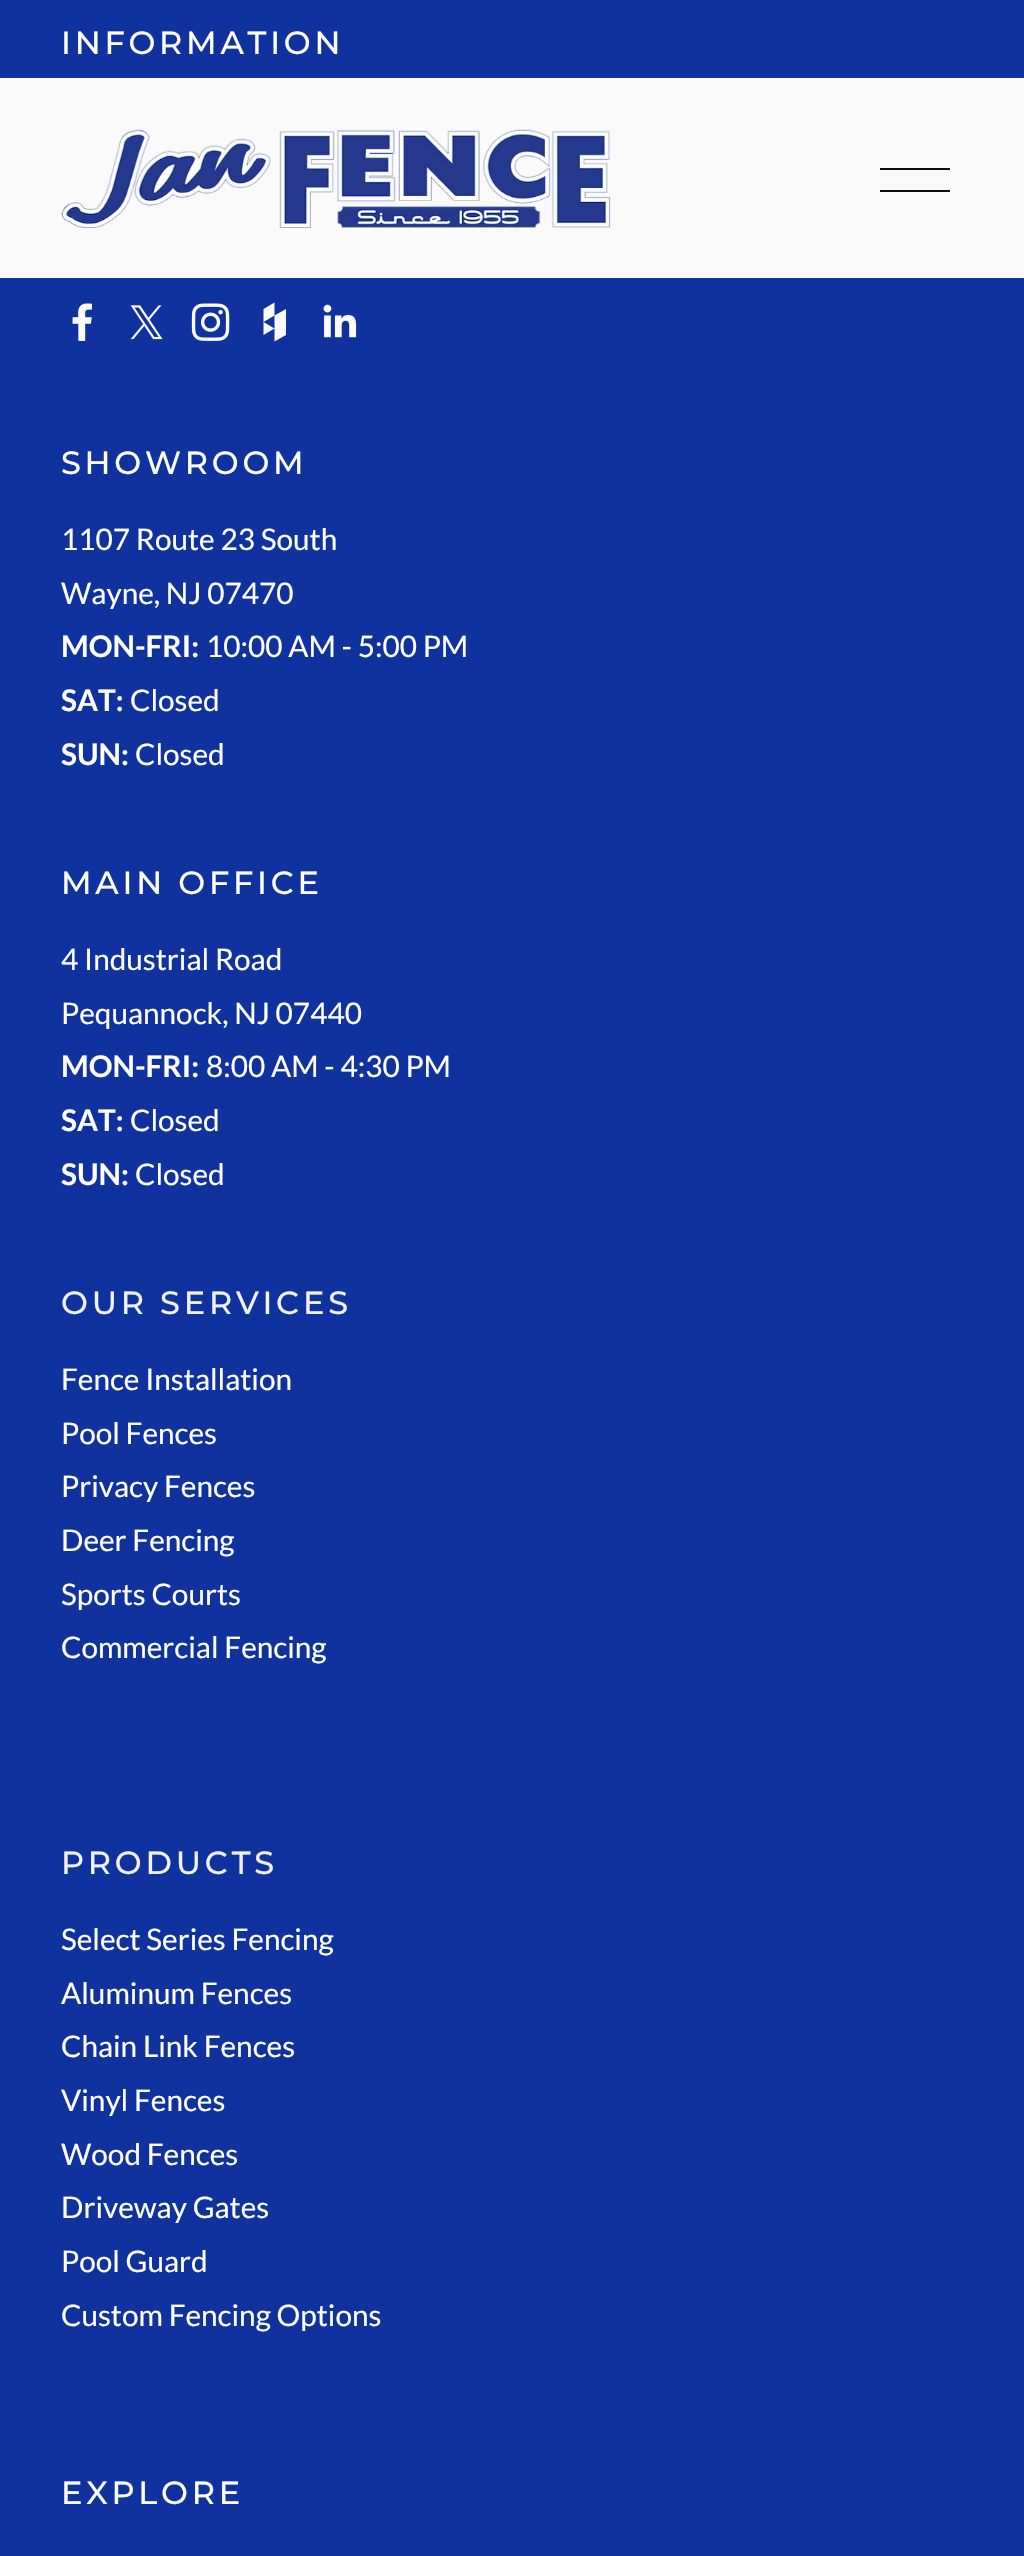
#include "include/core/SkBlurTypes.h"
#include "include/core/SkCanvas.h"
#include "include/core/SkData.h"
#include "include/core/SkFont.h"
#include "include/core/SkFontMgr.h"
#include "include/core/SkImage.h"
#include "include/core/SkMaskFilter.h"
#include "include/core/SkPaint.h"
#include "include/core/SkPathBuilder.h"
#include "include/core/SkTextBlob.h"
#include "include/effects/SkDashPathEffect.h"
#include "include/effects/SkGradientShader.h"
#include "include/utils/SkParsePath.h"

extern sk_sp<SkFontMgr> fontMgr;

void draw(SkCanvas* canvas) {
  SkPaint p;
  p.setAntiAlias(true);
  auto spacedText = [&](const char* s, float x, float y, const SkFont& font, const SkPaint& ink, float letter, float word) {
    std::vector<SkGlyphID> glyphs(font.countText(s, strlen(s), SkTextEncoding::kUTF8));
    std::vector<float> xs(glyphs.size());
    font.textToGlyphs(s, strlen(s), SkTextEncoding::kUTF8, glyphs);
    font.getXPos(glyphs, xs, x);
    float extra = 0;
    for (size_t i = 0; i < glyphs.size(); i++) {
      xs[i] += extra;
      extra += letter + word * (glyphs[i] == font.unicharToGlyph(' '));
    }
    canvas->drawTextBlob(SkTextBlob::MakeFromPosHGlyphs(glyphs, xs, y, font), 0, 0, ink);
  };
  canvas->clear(SkColorSetRGB(16, 50, 159));
  canvas->drawImageRect(SkImages::DeferredFromEncodedData(SkData::MakeFromFileName("images/1.png")), SkRect::MakeLTRB(72, 303, 92, 341), SkSamplingOptions());
  canvas->drawImageRect(SkImages::DeferredFromEncodedData(SkData::MakeFromFileName("images/2.png")), SkRect::MakeLTRB(130, 305, 163, 340), SkSamplingOptions());
  canvas->drawImageRect(SkImages::DeferredFromEncodedData(SkData::MakeFromFileName("images/3.png")), SkRect::MakeLTRB(191, 303, 230, 341), SkSamplingOptions());
  p.setColor(SkColorSetRGB(250, 250, 250));
  canvas->drawPath(SkPathBuilder().moveTo(263.5f, 335).lineTo(274.5f, 328.5f).lineTo(263.5f, 322).lineTo(274.5f, 315.5f).lineTo(274.5f, 341.5f).lineTo(286, 335).lineTo(286, 309).lineTo(274.5f, 315.5f).lineTo(274.5f, 302.5f).lineTo(263.5f, 309).close().detach(), p);
  canvas->drawImageRect(SkImages::DeferredFromEncodedData(SkData::MakeFromFileName("images/4.png")), SkRect::MakeLTRB(323, 304, 357, 338), SkSamplingOptions());
  canvas->drawRect(SkRect::MakeLTRB(0, 78, 1024, 278), p);
  canvas->drawImageRect(SkImages::DeferredFromEncodedData(SkData::MakeFromFileName("images/5.png")), SkRect::MakeLTRB(61, 129, 611, 228), SkSamplingOptions());
  p.setColor(SkColorSetRGB(11, 11, 11));
  canvas->drawRect(SkRect::MakeLTRB(880, 168, 950, 170), p);
  canvas->drawRect(SkRect::MakeLTRB(880, 190, 950, 192), p);
  SkFont font1(fontMgr->matchFamilyStyle("Montserrat", SkFontStyle(500, SkFontStyle::kNormal_Width, SkFontStyle::kUpright_Slant)), 32);
  font1.setSubpixel(true);
  p.setColor(SK_ColorWHITE);
  spacedText("INFORMATION", 61, 54, font1, p, 3.75f, 0);
  spacedText("SHOWROOM", 61, 474, font1, p, 3.75f, 0);
  SkFont font2(fontMgr->matchFamilyStyle("Lato", SkFontStyle::Normal()), 29.75f);
  font2.setSubpixel(true);
  canvas->drawString("1107 Route 23 South", 61, 550, font2, p);
  canvas->drawString("Wayne, NJ 07470", 61, 604, font2, p);
  SkFont font3(fontMgr->matchFamilyStyle("Lato", SkFontStyle::Bold()), 29.75f);
  font3.setSubpixel(true);
  canvas->drawString("MON-FRI:", 61, 657, font3, p);
  canvas->drawString("10:00 AM - 5:00 PM", 206, 657, font2, p);
  canvas->drawString("SAT:", 61, 711, font3, p);
  canvas->drawString("Closed", 130, 711, font2, p);
  canvas->drawString("SUN:", 61, 765, font3, p);
  canvas->drawString("Closed", 135, 765, font2, p);
  spacedText("MAIN OFFICE", 61, 894, font1, p, 3.75f, 0);
  canvas->drawString("4 Industrial Road", 61, 970, font2, p);
  canvas->drawString("Pequannock, NJ 07440", 61, 1024, font2, p);
  canvas->drawString("MON-FRI:", 61, 1077, font3, p);
  canvas->drawString("8:00 AM - 4:30 PM", 206, 1077, font2, p);
  canvas->drawString("SAT:", 61, 1131, font3, p);
  canvas->drawString("Closed", 130, 1131, font2, p);
  canvas->drawString("SUN:", 61, 1185, font3, p);
  canvas->drawString("Closed", 135, 1185, font2, p);
  p.setColor(SkColorSetRGB(241, 241, 241));
  spacedText("OUR SERVICES", 61, 1314, font1, p, 3.75f, 0);
  p.setColor(SK_ColorWHITE);
  canvas->drawString("Fence Installation", 61, 1390, font2, p);
  canvas->drawString("Pool Fences", 61, 1444, font2, p);
  canvas->drawString("Privacy Fences", 61, 1497, font2, p);
  canvas->drawString("Deer Fencing", 61, 1551, font2, p);
  canvas->drawString("Sports Courts", 61, 1605, font2, p);
  canvas->drawString("Commercial Fencing", 61, 1658, font2, p);
  p.setColor(SkColorSetRGB(241, 241, 241));
  spacedText("PRODUCTS", 61, 1874, font1, p, 3.75f, 0);
  p.setColor(SK_ColorWHITE);
  canvas->drawString("Select Series Fencing", 61, 1950, font2, p);
  canvas->drawString("Aluminum Fences", 61, 2004, font2, p);
  canvas->drawString("Chain Link Fences", 61, 2057, font2, p);
  canvas->drawString("Vinyl Fences", 61, 2111, font2, p);
  canvas->drawString("Wood Fences", 61, 2165, font2, p);
  canvas->drawString("Driveway Gates", 61, 2218, font2, p);
  canvas->drawString("Pool Guard", 61, 2272, font2, p);
  canvas->drawString("Custom Fencing Options", 61, 2326, font2, p);
  spacedText("EXPLORE", 61, 2504, font1, p, 3.75f, 0);
}
